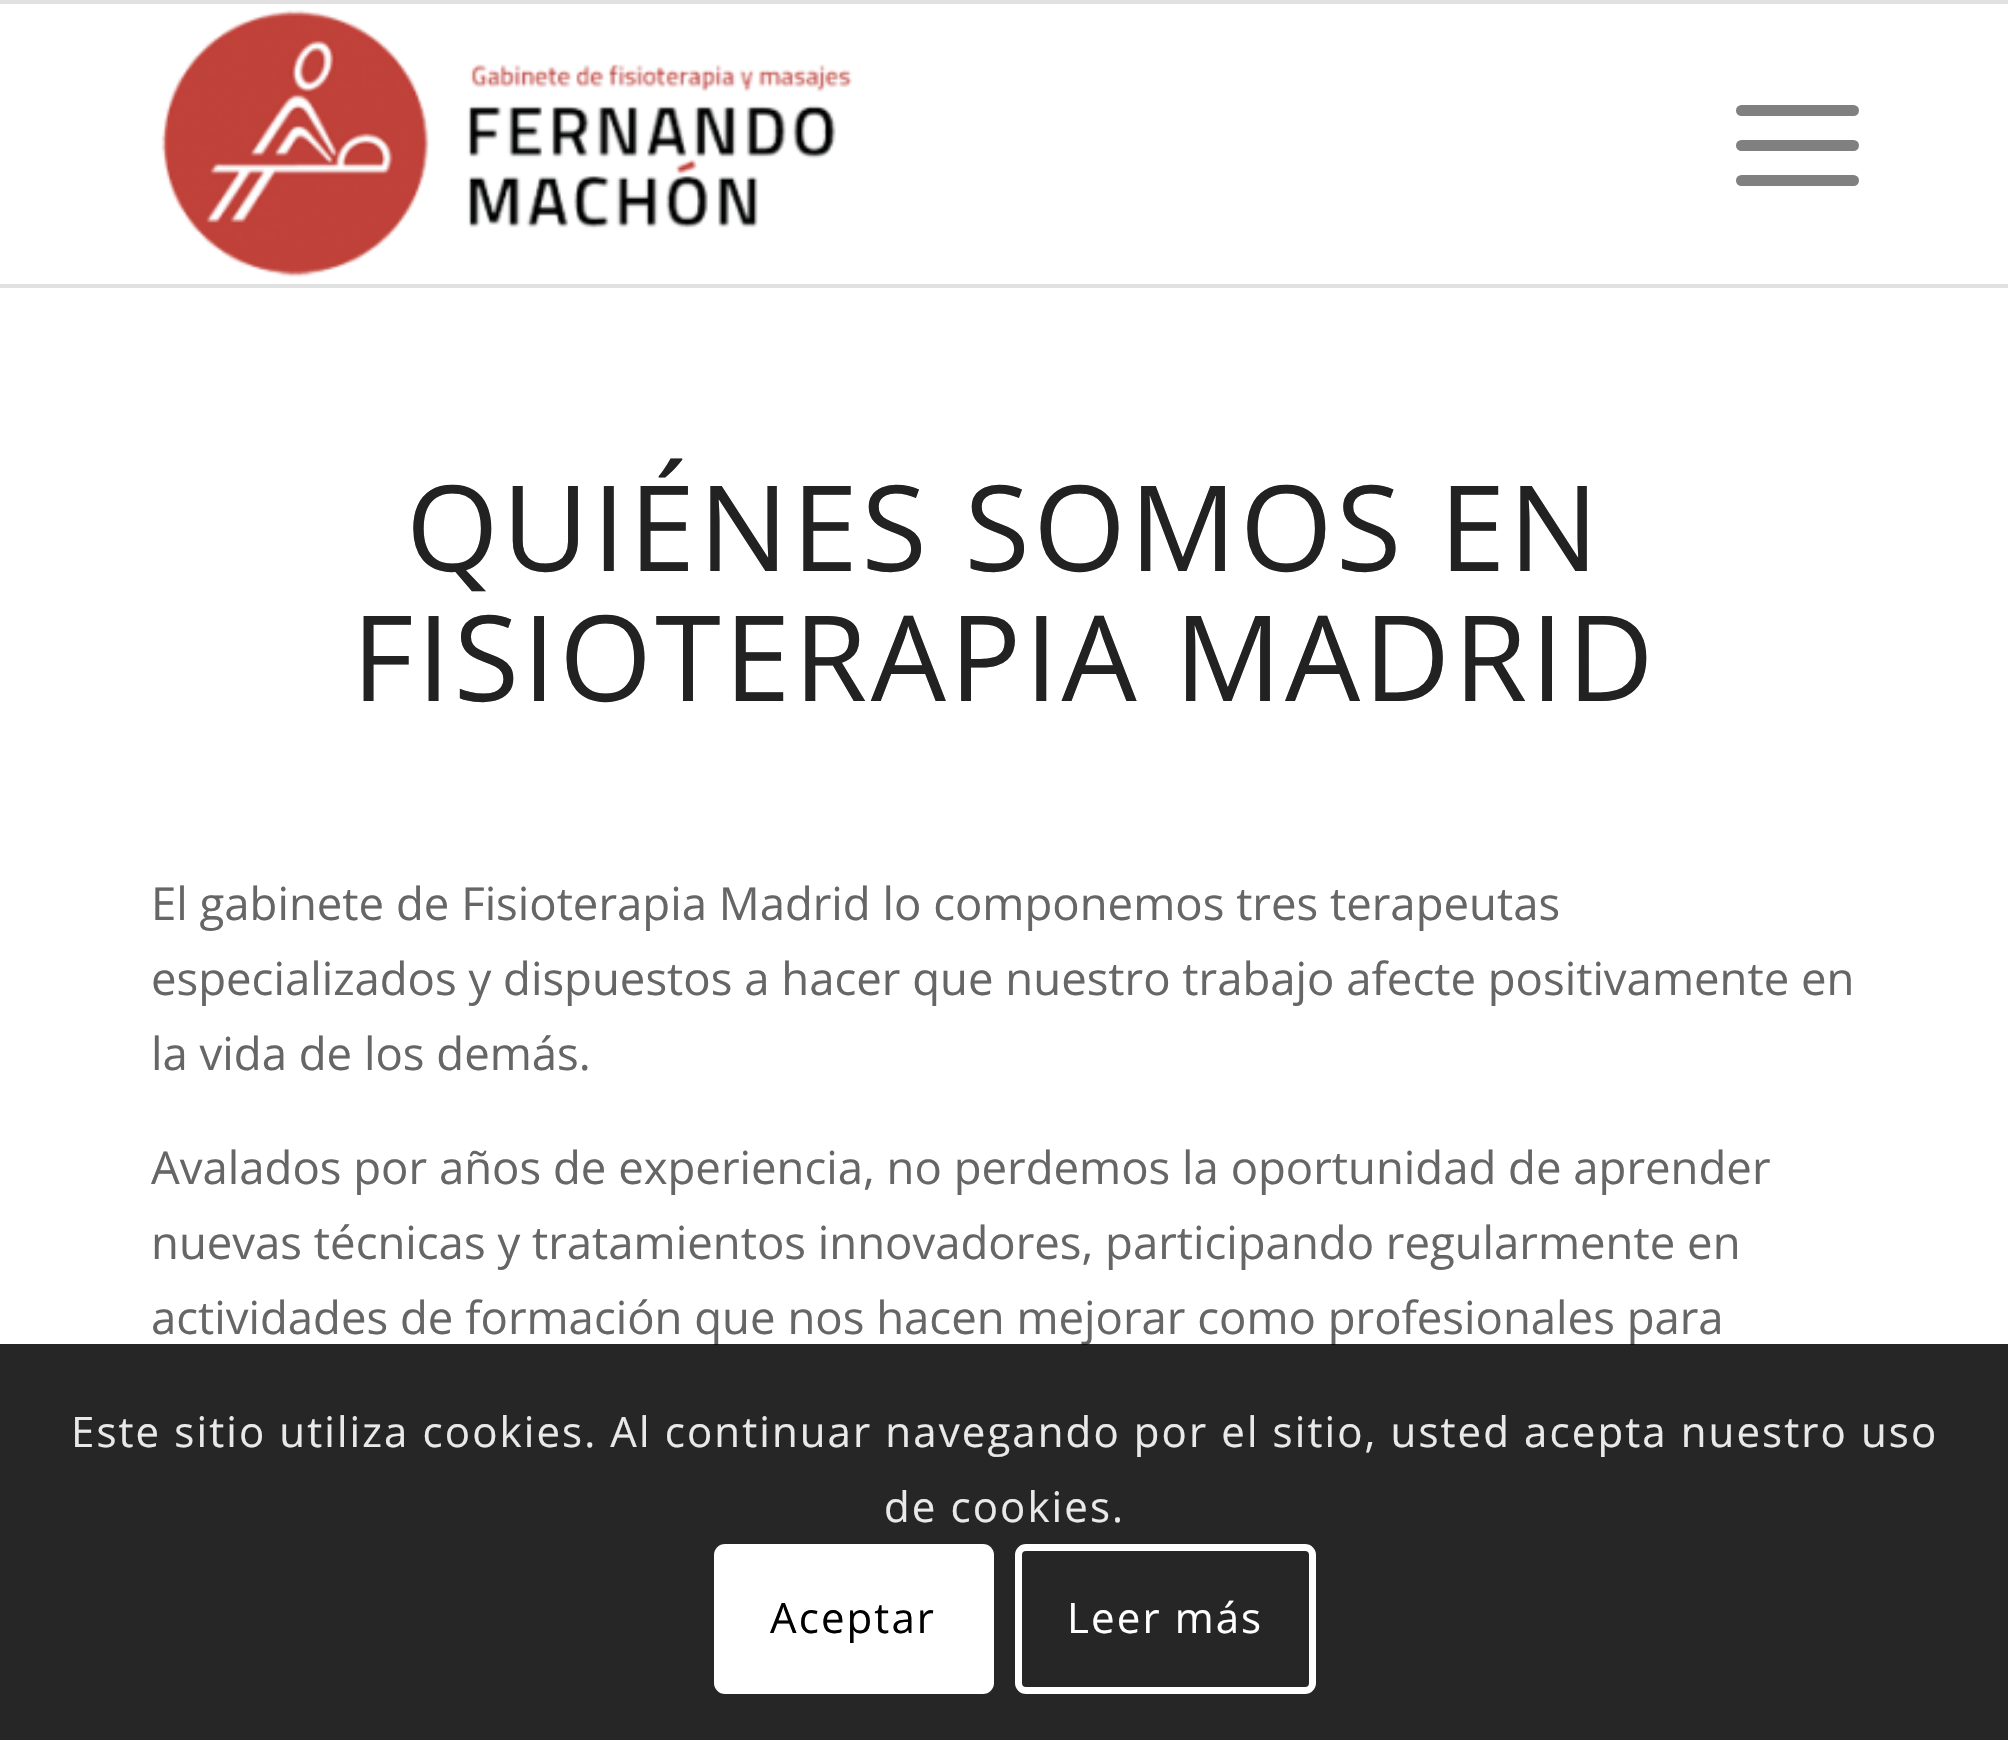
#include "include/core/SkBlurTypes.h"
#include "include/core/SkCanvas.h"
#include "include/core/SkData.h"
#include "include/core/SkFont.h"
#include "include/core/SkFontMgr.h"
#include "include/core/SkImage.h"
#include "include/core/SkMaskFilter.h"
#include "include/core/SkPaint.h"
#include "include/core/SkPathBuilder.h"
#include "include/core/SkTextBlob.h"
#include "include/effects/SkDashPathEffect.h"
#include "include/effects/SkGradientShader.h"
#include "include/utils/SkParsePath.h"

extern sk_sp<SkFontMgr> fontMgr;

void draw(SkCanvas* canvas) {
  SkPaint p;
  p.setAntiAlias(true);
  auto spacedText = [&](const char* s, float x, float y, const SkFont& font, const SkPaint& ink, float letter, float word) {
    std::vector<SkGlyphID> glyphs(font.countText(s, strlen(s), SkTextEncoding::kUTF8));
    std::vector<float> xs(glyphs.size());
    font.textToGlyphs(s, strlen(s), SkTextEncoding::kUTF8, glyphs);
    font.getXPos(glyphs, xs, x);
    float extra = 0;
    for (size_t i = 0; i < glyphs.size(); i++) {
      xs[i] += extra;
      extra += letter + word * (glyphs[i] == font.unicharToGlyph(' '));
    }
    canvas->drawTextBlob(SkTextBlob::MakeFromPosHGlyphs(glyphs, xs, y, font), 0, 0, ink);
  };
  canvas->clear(SK_ColorWHITE);
  p.setColor(SkColorSetRGB(225, 225, 225));
  canvas->drawRect(SkRect::MakeLTRB(0, 0, 2008, 4), p);
  canvas->drawRect(SkRect::MakeLTRB(0, 284, 2008, 288), p);
  canvas->drawImageRect(SkImages::DeferredFromEncodedData(SkData::MakeFromFileName("images/1.png")), SkRect::MakeLTRB(161, 10, 853, 277), SkSamplingOptions());
  p.setColor(SkColorSetRGB(128, 128, 128));
  canvas->drawRoundRect(SkRect::MakeLTRB(1736, 140, 1859, 151), 5.5f, 5.5f, p);
  canvas->drawRoundRect(SkRect::MakeLTRB(1736, 105, 1859, 116), 5.5f, 5.5f, p);
  canvas->drawRoundRect(SkRect::MakeLTRB(1736, 175, 1859, 186), 5.5f, 5.5f, p);
  SkFont font1(fontMgr->matchFamilyStyle("Open Sans", SkFontStyle::Normal()), 119);
  font1.setSubpixel(true);
  p.setColor(SkColorSetRGB(34, 34, 34));
  spacedText("QUIÉNES SOMOS EN", 406, 571, font1, p, 3.5f, 0);
  spacedText("FISIOTERAPIA MADRID", 352, 701, font1, p, 3.5f, 0);
  SkFont font2(fontMgr->matchFamilyStyle("Open Sans", SkFontStyle::Normal()), 45.5f);
  font2.setSubpixel(true);
  p.setColor(SkColorSetRGB(102, 102, 102));
  canvas->drawString("El gabinete de Fisioterapia Madrid lo componemos tres terapeutas", 151, 920, font2, p);
  canvas->drawString("especializados y dispuestos a hacer que nuestro trabajo afecte positivamente en", 151, 995, font2, p);
  canvas->drawString("la vida de los demás.", 151, 1070, font2, p);
  canvas->drawString("Avalados por años de experiencia, no perdemos la oportunidad de aprender", 151, 1184, font2, p);
  canvas->drawString("nuevas técnicas y tratamientos innovadores, participando regularmente en", 151, 1259, font2, p);
  canvas->drawString("actividades de formación que nos hacen mejorar como profesionales para", 151, 1334, font2, p);
  p.setColor(SkColorSetARGB(217, 0, 0, 0));
  canvas->drawRect(SkRect::MakeLTRB(0, 1344, 2008, 1740), p);
  SkFont font3(fontMgr->matchFamilyStyle("Open Sans", SkFontStyle::Normal()), 42);
  font3.setSubpixel(true);
  p.setColor(SkColorSetRGB(233, 233, 233));
  spacedText("Este sitio utiliza cookies. Al continuar navegando por el sitio, usted acepta nuestro uso", 71, 1447, font3, p, 2.1f, 0);
  spacedText("de cookies.", 884, 1522, font3, p, 2.1f, 0);
  p.setColor(SK_ColorWHITE);
  canvas->drawRoundRect(SkRect::MakeLTRB(714, 1544, 994, 1694), 11, 11, p);
  p.setColor(SK_ColorBLACK);
  spacedText("Aceptar", 770, 1633, font3, p, 2.1f, 0);
  p.setStyle(SkPaint::kStroke_Style);
  p.setStrokeWidth(7);
  p.setColor(SK_ColorWHITE);
  canvas->drawRoundRect(SkRect::MakeLTRB(1018.5f, 1547.5f, 1312.5f, 1690.5f), 7.5f, 7.5f, p);
  p.setStyle(SkPaint::kFill_Style);
  spacedText("Leer más", 1067, 1633, font3, p, 2.1f, 0);
}
